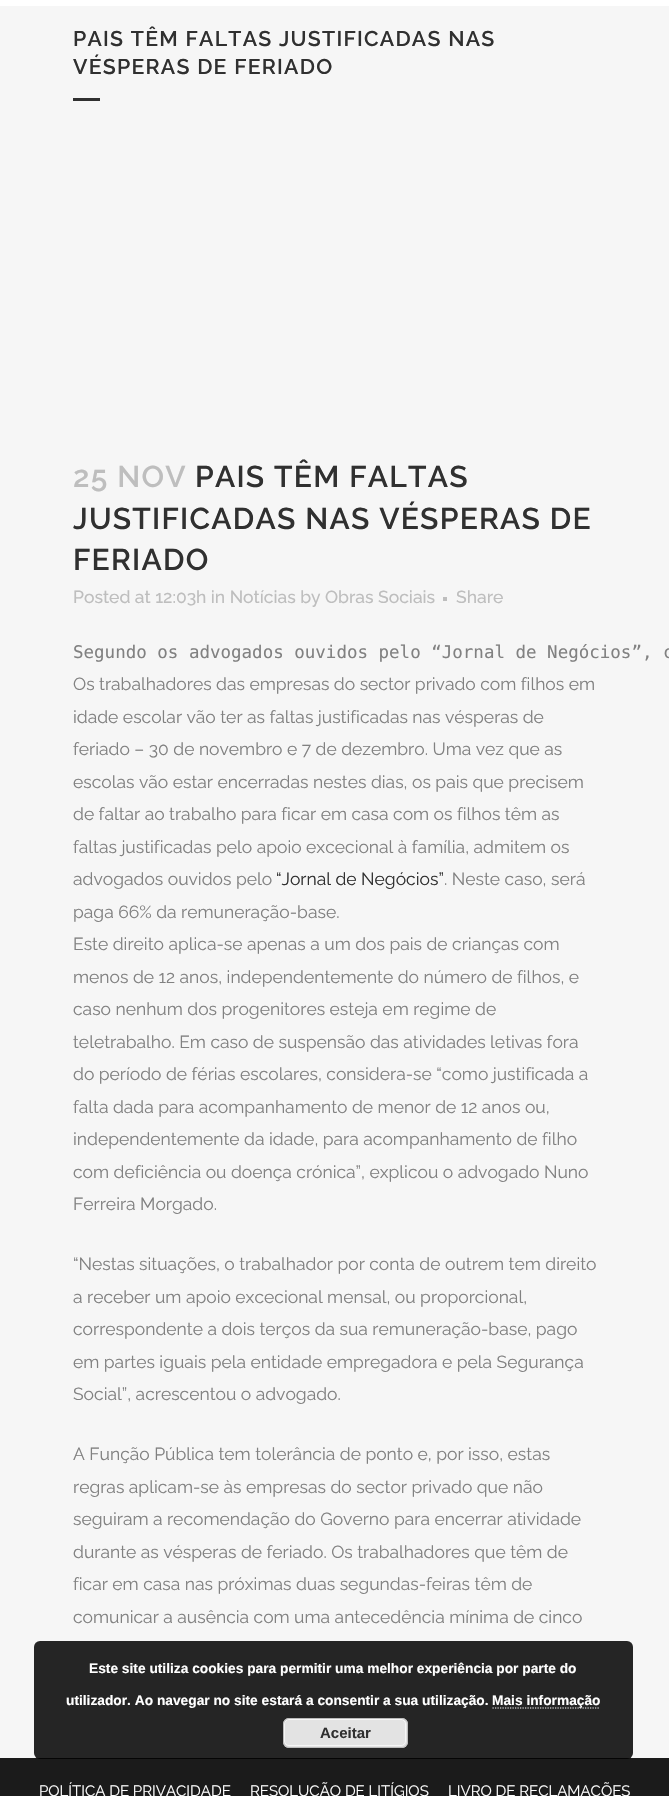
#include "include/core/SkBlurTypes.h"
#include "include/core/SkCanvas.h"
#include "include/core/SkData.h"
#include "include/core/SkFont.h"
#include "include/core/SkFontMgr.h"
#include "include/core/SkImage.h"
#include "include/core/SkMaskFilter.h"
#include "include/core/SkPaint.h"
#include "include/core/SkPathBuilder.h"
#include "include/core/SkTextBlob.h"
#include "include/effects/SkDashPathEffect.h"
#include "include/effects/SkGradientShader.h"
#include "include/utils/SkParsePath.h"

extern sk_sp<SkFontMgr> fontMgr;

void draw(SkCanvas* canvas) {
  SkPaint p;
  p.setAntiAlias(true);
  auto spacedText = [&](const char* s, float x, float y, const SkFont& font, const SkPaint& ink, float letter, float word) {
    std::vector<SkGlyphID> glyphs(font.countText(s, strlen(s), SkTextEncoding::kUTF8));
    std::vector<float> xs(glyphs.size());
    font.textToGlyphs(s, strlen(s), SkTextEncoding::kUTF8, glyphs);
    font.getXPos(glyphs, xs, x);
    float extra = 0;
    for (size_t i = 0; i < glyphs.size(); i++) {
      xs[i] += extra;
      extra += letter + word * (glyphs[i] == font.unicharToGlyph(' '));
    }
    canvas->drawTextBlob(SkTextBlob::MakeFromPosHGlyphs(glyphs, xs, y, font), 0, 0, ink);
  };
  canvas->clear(SkColorSetRGB(246, 246, 246));
  p.setColor(SK_ColorWHITE);
  canvas->drawRect(SkRect::MakeLTRB(0, 0, 669, 6), p);
  p.setColor(SkColorSetRGB(48, 48, 48));
  canvas->drawRect(SkRect::MakeLTRB(73, 98, 100, 101), p);
  p.setColor(SkColorSetRGB(190, 190, 190));
  canvas->drawRect(SkRect::MakeLTRB(443, 597, 447, 601), p);
  p.setColor(SkColorSetRGB(27, 27, 27));
  canvas->drawRect(SkRect::MakeLTRB(0, 1758, 669, 1796), p);
  p.setColor(SkColorSetARGB(217, 0, 0, 0));
  canvas->drawRoundRect(SkRect::MakeLTRB(34, 1641, 633, 1759), 6, 6, p);
  p.setStyle(SkPaint::kStroke_Style);
  p.setStrokeWidth(1.2f);
  p.setColor(SK_ColorWHITE);
  p.setPathEffect(SkDashPathEffect::Make({{1.25f, 1.25f}}, 0));
  canvas->drawPath(SkPathBuilder().moveTo(492.5f, 1708).lineTo(600, 1708).detach(), p);
  p.setPathEffect(nullptr);
  p.setStyle(SkPaint::kFill_Style);
  p.setColor(SkColorSetRGB(227, 227, 227));
  canvas->drawRoundRect(SkRect::MakeLTRB(283, 1718, 408, 1748), 6, 6, p);
  p.setStyle(SkPaint::kStroke_Style);
  p.setStrokeWidth(1);
  p.setColor(SkColorSetRGB(246, 246, 246));
  canvas->drawRoundRect(SkRect::MakeLTRB(284.5f, 1719.5f, 405.5f, 1745.5f), 4.5f, 4.5f, p);
  p.setColor(SkColorSetRGB(187, 187, 187));
  canvas->drawRoundRect(SkRect::MakeLTRB(283.5f, 1718.5f, 407.5f, 1747.5f), 5.5f, 5.5f, p);
  SkFont font1(fontMgr->matchFamilyStyle("Raleway", SkFontStyle(600, SkFontStyle::kNormal_Width, SkFontStyle::kUpright_Slant)), 21.25f);
  font1.setSubpixel(true);
  p.setStyle(SkPaint::kFill_Style);
  p.setColor(SkColorSetRGB(48, 48, 48));
  spacedText("PAIS TÊM FALTAS JUSTIFICADAS NAS", 73, 46, font1, p, 1.25f, 0);
  spacedText("VÉSPERAS DE FERIADO", 73, 74, font1, p, 1.25f, 0);
  SkFont font2(fontMgr->matchFamilyStyle("Raleway", SkFontStyle(600, SkFontStyle::kNormal_Width, SkFontStyle::kUpright_Slant)), 30);
  font2.setSubpixel(true);
  p.setColor(SkColorSetRGB(190, 190, 190));
  spacedText("25 NOV", 73, 487, font2, p, 1.25f, 0);
  p.setColor(SkColorSetRGB(48, 48, 48));
  spacedText("PAIS TÊM FALTAS", 195, 487, font2, p, 1.25f, 0);
  spacedText("JUSTIFICADAS NAS VÉSPERAS DE", 73, 529, font2, p, 1.25f, 0);
  spacedText("FERIADO", 73, 570, font2, p, 1.25f, 0);
  SkFont font3(fontMgr->matchFamilyStyle("Raleway", SkFontStyle(500, SkFontStyle::kNormal_Width, SkFontStyle::kUpright_Slant)), 17.5f);
  font3.setSubpixel(true);
  p.setColor(SkColorSetRGB(190, 190, 190));
  canvas->drawString("Posted at 12:03h in Notícias by Obras Sociais", 73, 603, font3, p);
  canvas->drawString("Share", 456, 603, font3, p);
  SkFont font4(fontMgr->matchFamilyStyle("DejaVu Sans Mono", SkFontStyle::Normal()), 17.5f);
  font4.setSubpixel(true);
  p.setColor(SkColorSetRGB(129, 129, 129));
  canvas->drawString("Segundo os advogados ouvidos pelo “Jornal de Negócios”, c", 73, 658, font4, p);
  SkFont font5(fontMgr->matchFamilyStyle("Raleway", SkFontStyle::Normal()), 17.5f);
  font5.setSubpixel(true);
  canvas->drawString("Os trabalhadores das empresas do sector privado com filhos em", 73, 690, font5, p);
  canvas->drawString("idade escolar vão ter as faltas justificadas nas vésperas de", 73, 723, font5, p);
  canvas->drawString("feriado – 30 de novembro e 7 de dezembro. Uma vez que as", 73, 755, font5, p);
  canvas->drawString("escolas vão estar encerradas nestes dias, os pais que precisem", 73, 788, font5, p);
  canvas->drawString("de faltar ao trabalho para ficar em casa com os filhos têm as", 73, 820, font5, p);
  canvas->drawString("faltas justificadas pelo apoio excecional à família, admitem os", 73, 853, font5, p);
  canvas->drawString("advogados ouvidos pelo", 73, 885, font5, p);
  p.setColor(SkColorSetRGB(48, 48, 48));
  canvas->drawString("“Jornal de Negócios”", 276, 885, font5, p);
  p.setColor(SkColorSetRGB(129, 129, 129));
  canvas->drawString(". Neste caso, será", 444, 885, font5, p);
  canvas->drawString("paga 66% da remuneração-base.", 73, 918, font5, p);
  canvas->drawString("Este direito aplica-se apenas a um dos pais de crianças com", 73, 950, font5, p);
  canvas->drawString("menos de 12 anos, independentemente do número de filhos, e", 73, 983, font5, p);
  canvas->drawString("caso nenhum dos progenitores esteja em regime de", 73, 1015, font5, p);
  canvas->drawString("teletrabalho. Em caso de suspensão das atividades letivas fora", 73, 1048, font5, p);
  canvas->drawString("do período de férias escolares, considera-se “como justificada a", 73, 1080, font5, p);
  canvas->drawString("falta dada para acompanhamento de menor de 12 anos ou,", 73, 1113, font5, p);
  canvas->drawString("independentemente da idade, para acompanhamento de filho", 73, 1145, font5, p);
  canvas->drawString("com deficiência ou doença crónica”, explicou o advogado Nuno", 73, 1178, font5, p);
  canvas->drawString("Ferreira Morgado.", 73, 1210, font5, p);
  canvas->drawString("“Nestas situações, o trabalhador por conta de outrem tem direito", 73, 1270, font5, p);
  canvas->drawString("a receber um apoio excecional mensal, ou proporcional,", 73, 1303, font5, p);
  canvas->drawString("correspondente a dois terços da sua remuneração-base, pago", 73, 1335, font5, p);
  canvas->drawString("em partes iguais pela entidade empregadora e pela Segurança", 73, 1368, font5, p);
  canvas->drawString("Social”, acrescentou o advogado.", 73, 1400, font5, p);
  canvas->drawString("A Função Pública tem tolerância de ponto e, por isso, estas", 73, 1460, font5, p);
  canvas->drawString("regras aplicam-se às empresas do sector privado que não", 73, 1493, font5, p);
  canvas->drawString("seguiram a recomendação do Governo para encerrar atividade", 73, 1525, font5, p);
  canvas->drawString("durante as vésperas de feriado. Os trabalhadores que têm de", 73, 1558, font5, p);
  canvas->drawString("ficar em casa nas próximas duas segundas-feiras têm de", 73, 1590, font5, p);
  canvas->drawString("comunicar a ausência com uma antecedência mínima de cinco", 73, 1623, font5, p);
  SkFont font6(fontMgr->matchFamilyStyle("Raleway", SkFontStyle::Normal()), 15);
  font6.setSubpixel(true);
  p.setColor(SK_ColorWHITE);
  canvas->drawString("POLÍTICA DE PRIVACIDADE", 39, 1796, font6, p);
  canvas->drawString("RESOLUÇÃO DE LITÍGIOS", 250, 1796, font6, p);
  canvas->drawString("LIVRO DE RECLAMAÇÕES", 448, 1796, font6, p);
  SkFont font7(fontMgr->matchFamilyStyle("Liberation Sans", SkFontStyle::Bold()), 13.75f);
  font7.setSubpixel(true);
  canvas->drawString("Este site utiliza cookies para permitir uma melhor experiência por parte do", 89, 1673, font7, p);
  canvas->drawString("utilizador. Ao navegar no site estará a consentir a sua utilização.", 66, 1705, font7, p);
  canvas->drawString("Mais informação", 492, 1705, font7, p);
  SkFont font8(fontMgr->matchFamilyStyle("Liberation Sans", SkFontStyle::Bold()), 15);
  font8.setSubpixel(true);
  p.setColor(SkColorSetRGB(48, 48, 48));
  canvas->drawString("Aceitar", 320, 1738, font8, p);
}
